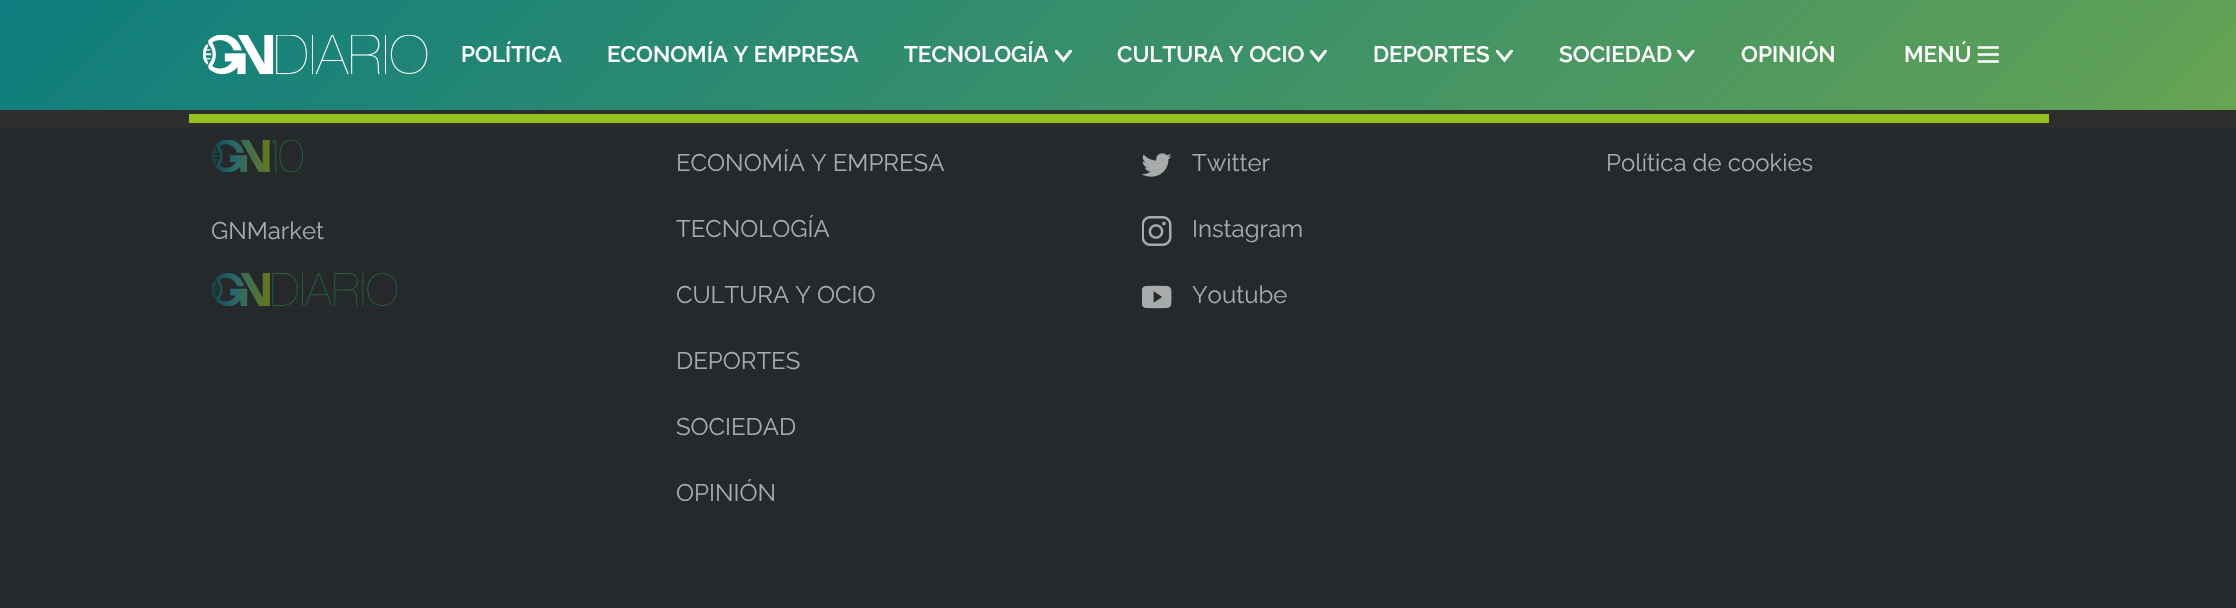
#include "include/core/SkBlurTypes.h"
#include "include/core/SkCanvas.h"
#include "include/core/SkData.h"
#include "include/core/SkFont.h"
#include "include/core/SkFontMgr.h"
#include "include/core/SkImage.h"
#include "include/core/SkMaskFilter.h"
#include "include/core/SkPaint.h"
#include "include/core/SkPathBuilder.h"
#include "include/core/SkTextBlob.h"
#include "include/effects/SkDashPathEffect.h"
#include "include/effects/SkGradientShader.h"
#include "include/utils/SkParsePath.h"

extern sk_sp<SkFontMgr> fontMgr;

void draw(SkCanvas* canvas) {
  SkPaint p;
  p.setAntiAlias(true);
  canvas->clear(SkColorSetRGB(37, 41, 43));
  p.setColor(SkColorSetRGB(46, 46, 45));
  canvas->drawRect(SkRect::MakeLTRB(0, 110, 2236, 128), p);
  {
    const SkColor colors[] = {SkColorSetRGB(14, 125, 127), SkColorSetRGB(93, 159, 88), SkColorSetRGB(162, 189, 54)};
    const float stops[] = {0, 0.7f, 1};
    const SkPoint ends[] = {{723, -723}, {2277, 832}};
    p.setShader(SkGradientShader::MakeLinear(ends, colors, stops, 3, SkTileMode::kClamp));
    p.setAlpha(255);
  }
  canvas->drawRect(SkRect::MakeLTRB(0, 0, 2236, 110), p);
  canvas->drawImageRect(SkImages::DeferredFromEncodedData(SkData::MakeFromFileName("images/1.png")), SkRect::MakeLTRB(203, 35, 428, 75), SkSamplingOptions());
  canvas->save();
  canvas->clipRect(SkRect::MakeLTRB(1055, 50, 1073, 63));
  p.setStyle(SkPaint::kStroke_Style);
  p.setStrokeWidth(3);
  p.setStrokeCap(SkPaint::kRound_Cap);
  p.setShader(nullptr);
  p.setColor(SK_ColorWHITE);
  canvas->drawPath(SkPathBuilder().moveTo(1056, 51).lineTo(1063.5f, 60).lineTo(1070.5f, 51).detach(), p);
  canvas->restore();
  canvas->save();
  canvas->clipRect(SkRect::MakeLTRB(1310, 50, 1328, 63));
  canvas->drawPath(SkPathBuilder().moveTo(1311, 51).lineTo(1318.5f, 60).lineTo(1325.5f, 51).detach(), p);
  canvas->restore();
  canvas->save();
  canvas->clipRect(SkRect::MakeLTRB(1496, 50, 1514, 63));
  canvas->drawPath(SkPathBuilder().moveTo(1497, 51).lineTo(1504.5f, 60).lineTo(1511.5f, 51).detach(), p);
  canvas->restore();
  canvas->save();
  canvas->clipRect(SkRect::MakeLTRB(1677, 50, 1695, 63));
  canvas->drawPath(SkPathBuilder().moveTo(1678.5f, 51).lineTo(1686, 60).lineTo(1693, 51).detach(), p);
  canvas->restore();
  p.setStrokeWidth(2.6f);
  p.setStrokeCap(SkPaint::kSquare_Cap);
  canvas->drawPath(SkPathBuilder().moveTo(1979, 54.5f).lineTo(1997.5f, 54.5f).moveTo(1979, 61.5f).lineTo(1997.5f, 61.5f).moveTo(1979, 47.5f).lineTo(1997.5f, 47.5f).detach(), p);
  p.setStyle(SkPaint::kFill_Style);
  p.setColor(SkColorSetRGB(149, 193, 31));
  canvas->drawRect(SkRect::MakeLTRB(189, 114, 2049, 123), p);
  canvas->drawImageRect(SkImages::DeferredFromEncodedData(SkData::MakeFromFileName("images/2.png")), SkRect::MakeLTRB(1142, 153, 1172, 177), SkSamplingOptions());
  canvas->drawImageRect(SkImages::DeferredFromEncodedData(SkData::MakeFromFileName("images/3.png")), SkRect::MakeLTRB(1142, 216, 1172, 246), SkSamplingOptions());
  canvas->drawImageRect(SkImages::DeferredFromEncodedData(SkData::MakeFromFileName("images/4.png")), SkRect::MakeLTRB(1142, 285, 1172, 309), SkSamplingOptions());
  canvas->drawImageRect(SkImages::DeferredFromEncodedData(SkData::MakeFromFileName("images/5.png")), SkRect::MakeLTRB(212, 140, 303, 173), SkSamplingOptions());
  canvas->drawImageRect(SkImages::DeferredFromEncodedData(SkData::MakeFromFileName("images/6.png")), SkRect::MakeLTRB(212, 273, 398, 306), SkSamplingOptions());
  SkFont font1(fontMgr->matchFamilyStyle("Raleway", SkFontStyle(600, SkFontStyle::kNormal_Width, SkFontStyle::kUpright_Slant)), 22.5f);
  font1.setSubpixel(true);
  p.setColor(SK_ColorWHITE);
  canvas->drawString("POLÍTICA", 461, 62, font1, p);
  canvas->drawString("ECONOMÍA Y EMPRESA", 607, 62, font1, p);
  canvas->drawString("TECNOLOGÍA", 904, 62, font1, p);
  canvas->drawString("CULTURA Y OCIO", 1117, 62, font1, p);
  canvas->drawString("DEPORTES", 1373, 62, font1, p);
  canvas->drawString("SOCIEDAD", 1559, 62, font1, p);
  canvas->drawString("OPINIÓN", 1741, 62, font1, p);
  canvas->drawString("MENÚ", 1904, 62, font1, p);
  SkFont font2(fontMgr->matchFamilyStyle("Raleway", SkFontStyle::Normal()), 24);
  font2.setSubpixel(true);
  p.setColor(SkColorSetRGB(168, 169, 170));
  canvas->drawString("ECONOMÍA Y EMPRESA", 676, 171, font2, p);
  canvas->drawString("TECNOLOGÍA", 676, 237, font2, p);
  canvas->drawString("CULTURA Y OCIO", 676, 303, font2, p);
  canvas->drawString("DEPORTES", 676, 369, font2, p);
  canvas->drawString("SOCIEDAD", 676, 435, font2, p);
  canvas->drawString("OPINIÓN", 676, 501, font2, p);
  canvas->drawString("Twitter", 1192, 171, font2, p);
  canvas->drawString("Instagram", 1192, 237, font2, p);
  canvas->drawString("Youtube", 1192, 303, font2, p);
  canvas->drawString("Política de cookies", 1606, 171, font2, p);
  canvas->drawString("GNMarket", 211, 239, font2, p);
}
